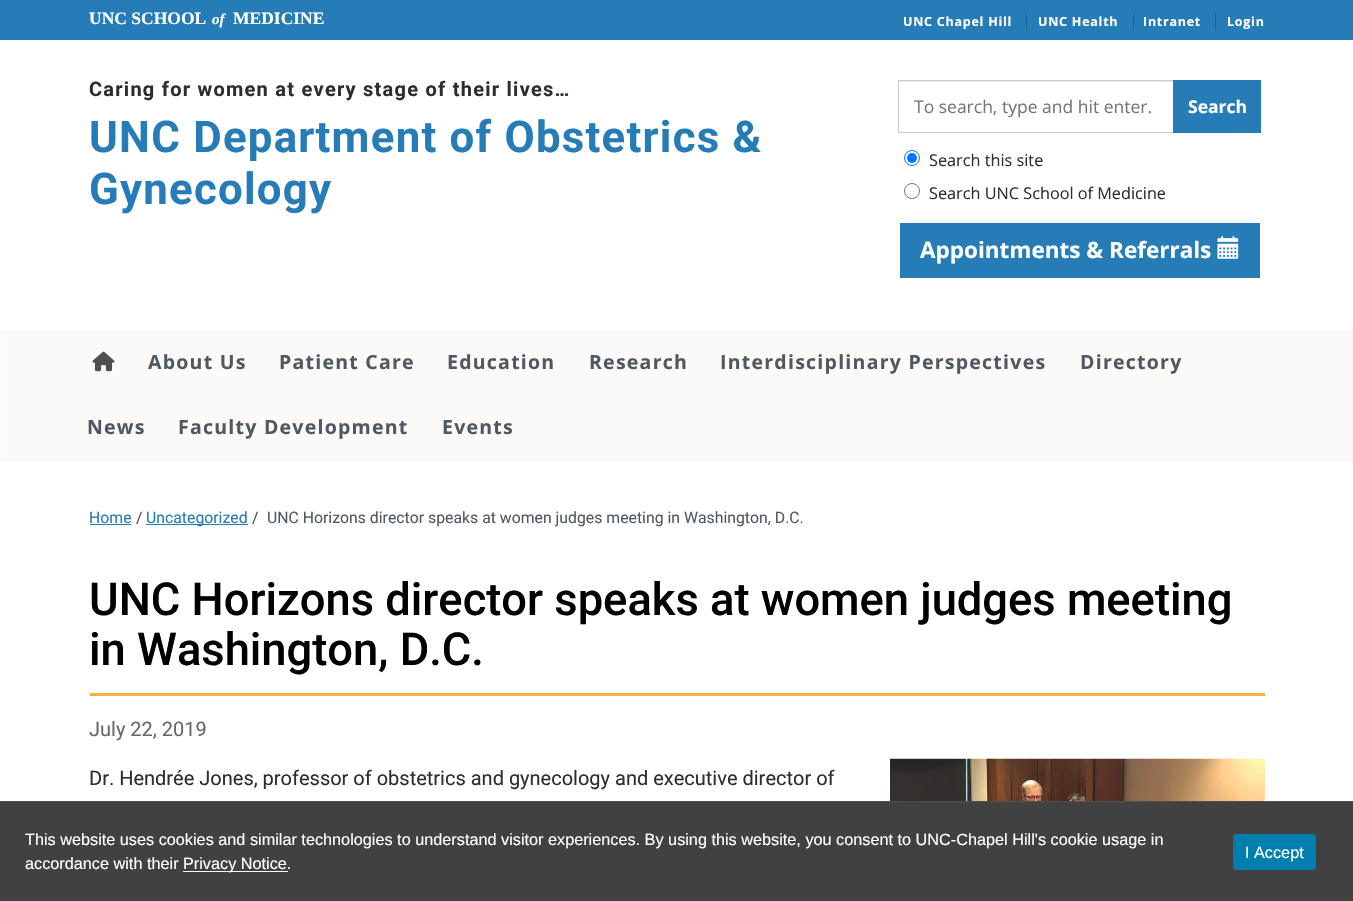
#include "include/core/SkBlurTypes.h"
#include "include/core/SkCanvas.h"
#include "include/core/SkData.h"
#include "include/core/SkFont.h"
#include "include/core/SkFontMgr.h"
#include "include/core/SkImage.h"
#include "include/core/SkMaskFilter.h"
#include "include/core/SkPaint.h"
#include "include/core/SkPathBuilder.h"
#include "include/core/SkTextBlob.h"
#include "include/effects/SkDashPathEffect.h"
#include "include/effects/SkGradientShader.h"
#include "include/utils/SkParsePath.h"

extern sk_sp<SkFontMgr> fontMgr;

void draw(SkCanvas* canvas) {
  SkPaint p;
  p.setAntiAlias(true);
  auto spacedText = [&](const char* s, float x, float y, const SkFont& font, const SkPaint& ink, float letter, float word) {
    std::vector<SkGlyphID> glyphs(font.countText(s, strlen(s), SkTextEncoding::kUTF8));
    std::vector<float> xs(glyphs.size());
    font.textToGlyphs(s, strlen(s), SkTextEncoding::kUTF8, glyphs);
    font.getXPos(glyphs, xs, x);
    float extra = 0;
    for (size_t i = 0; i < glyphs.size(); i++) {
      xs[i] += extra;
      extra += letter + word * (glyphs[i] == font.unicharToGlyph(' '));
    }
    canvas->drawTextBlob(SkTextBlob::MakeFromPosHGlyphs(glyphs, xs, y, font), 0, 0, ink);
  };
  canvas->clear(SK_ColorWHITE);
  p.setColor(SkColorSetRGB(37, 124, 183));
  canvas->drawRect(SkRect::MakeLTRB(0, 0, 1353, 40), p);
  p.setColor(SkColorSetRGB(30, 99, 146));
  canvas->drawRect(SkRect::MakeLTRB(1026, 13, 1027, 30), p);
  canvas->drawRect(SkRect::MakeLTRB(1133, 13, 1134, 30), p);
  canvas->drawRect(SkRect::MakeLTRB(1215, 13, 1216, 30), p);
  p.setColor(SkColorSetRGB(236, 236, 236));
  canvas->drawRect(SkRect::MakeLTRB(899, 81, 1173, 82), p);
  p.setStyle(SkPaint::kStroke_Style);
  p.setStrokeWidth(1);
  p.setColor(SkColorSetRGB(204, 204, 204));
  canvas->drawRect(SkRect::MakeLTRB(898.5f, 80.5f, 1173.5f, 132.5f), p);
  p.setStyle(SkPaint::kFill_Style);
  p.setColor(SkColorSetRGB(37, 124, 183));
  canvas->drawRect(SkRect::MakeLTRB(1173, 80, 1261, 133), p);
  p.setStyle(SkPaint::kStroke_Style);
  p.setColor(SkColorSetRGB(0, 117, 255));
  canvas->drawCircle(912, 158, 7.5f, p);
  p.setStyle(SkPaint::kFill_Style);
  canvas->drawCircle(912, 158, 5, p);
  p.setStyle(SkPaint::kStroke_Style);
  p.setColor(SkColorSetRGB(118, 118, 118));
  canvas->drawCircle(912, 191, 7.5f, p);
  p.setStyle(SkPaint::kFill_Style);
  p.setColor(SkColorSetRGB(37, 124, 183));
  canvas->drawRect(SkRect::MakeLTRB(900, 223, 1260, 278), p);
  canvas->drawImageRect(SkImages::DeferredFromEncodedData(SkData::MakeFromFileName("images/1.png")), SkRect::MakeLTRB(1217, 236, 1239, 259), SkSamplingOptions());
  p.setColor(SkColorSetARGB(191, 189, 189, 189));
  p.setMaskFilter(SkMaskFilter::MakeBlur(kNormal_SkBlurStyle, 0.5f));
  canvas->drawRect(SkRect::MakeLTRB(1, 331, 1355, 461), p);
  p.setMaskFilter(nullptr);
  p.setColor(SkColorSetRGB(251, 250, 248));
  canvas->drawRect(SkRect::MakeLTRB(1, 331, 1353, 461), p);
  canvas->drawImageRect(SkImages::DeferredFromEncodedData(SkData::MakeFromFileName("images/2.png")), SkRect::MakeLTRB(92, 351, 115, 372), SkSamplingOptions());
  p.setColor(SkColorSetRGB(37, 124, 183));
  canvas->drawRect(SkRect::MakeLTRB(90, 524, 131, 525), p);
  canvas->drawRect(SkRect::MakeLTRB(146, 524, 248, 525), p);
  p.setColor(SkColorSetRGB(251, 175, 65));
  canvas->drawRect(SkRect::MakeLTRB(90, 693, 1265, 696), p);
  canvas->drawImageRect(SkImages::DeferredFromEncodedData(SkData::MakeFromFileName("images/3.png")), SkRect::MakeLTRB(890, 758, 1265, 801), SkSamplingOptions());
  p.setColor(SkColorSetRGB(65, 65, 65));
  canvas->drawRect(SkRect::MakeLTRB(0, 802, 1353, 901), p);
  p.setColor(SkColorSetRGB(81, 81, 81));
  canvas->drawRect(SkRect::MakeLTRB(0, 801, 1353, 802), p);
  p.setColor(SK_ColorWHITE);
  canvas->drawRect(SkRect::MakeLTRB(183, 871, 288, 872), p);
  p.setColor(SkColorSetRGB(0, 127, 174));
  canvas->drawRoundRect(SkRect::MakeLTRB(1233, 834, 1316, 870), 4, 4, p);
  SkFont font1(fontMgr->matchFamilyStyle("Liberation Serif", SkFontStyle::Bold()), 17.5f);
  font1.setSubpixel(true);
  p.setColor(SK_ColorWHITE);
  canvas->drawString("UNC SCHOOL", 89, 24, font1, p);
  SkFont font2(fontMgr->matchFamilyStyle("Liberation Serif", SkFontStyle::BoldItalic()), 15);
  font2.setSubpixel(true);
  canvas->drawString("of", 212, 24, font2, p);
  canvas->drawString("MEDICINE", 233, 24, font1, p);
  SkFont font3(fontMgr->matchFamilyStyle("Open Sans", SkFontStyle::Bold()), 12.5f);
  font3.setSubpixel(true);
  spacedText("UNC Chapel Hill", 903, 26, font3, p, 0.75f, 0);
  spacedText("UNC Health", 1038, 26, font3, p, 0.75f, 0);
  spacedText("Intranet", 1143, 26, font3, p, 0.75f, 0);
  spacedText("Login", 1227, 26, font3, p, 0.75f, 0);
  SkFont font4(fontMgr->matchFamilyStyle("Roboto", SkFontStyle::Bold()), 20);
  font4.setSubpixel(true);
  p.setColor(SkColorSetRGB(46, 46, 46));
  spacedText("Caring for women at every stage of their lives…", 89, 96, font4, p, 1.25f, 0);
  SkFont font5(fontMgr->matchFamilyStyle("Roboto", SkFontStyle::Bold()), 43.75f);
  font5.setSubpixel(true);
  p.setColor(SkColorSetRGB(37, 124, 183));
  spacedText("UNC Department of Obstetrics &", 89, 152, font5, p, 1.25f, 0);
  spacedText("Gynecology", 89, 204, font5, p, 1.25f, 0);
  SkFont font6(fontMgr->matchFamilyStyle("Open Sans", SkFontStyle::Normal()), 17.5f);
  font6.setSubpixel(true);
  p.setColor(SkColorSetRGB(118, 118, 118));
  canvas->drawString("To search, type and hit enter.", 914, 113, font6, p);
  SkFont font7(fontMgr->matchFamilyStyle("Open Sans", SkFontStyle::Bold()), 17.5f);
  font7.setSubpixel(true);
  p.setColor(SK_ColorWHITE);
  canvas->drawString("Search", 1188, 113, font7, p);
  SkFont font8(fontMgr->matchFamilyStyle("Open Sans", SkFontStyle::Normal()), 16.25f);
  font8.setSubpixel(true);
  p.setColor(SkColorSetRGB(46, 46, 46));
  canvas->drawString("Search this site", 929, 166, font8, p);
  canvas->drawString("Search UNC School of Medicine", 929, 199, font8, p);
  SkFont font9(fontMgr->matchFamilyStyle("Open Sans", SkFontStyle::Bold()), 22.5f);
  font9.setSubpixel(true);
  p.setColor(SK_ColorWHITE);
  canvas->drawString("Appointments & Referrals", 920, 258, font9, p);
  SkFont font10(fontMgr->matchFamilyStyle("Open Sans", SkFontStyle::Bold()), 19.5f);
  font10.setSubpixel(true);
  p.setColor(SkColorSetRGB(80, 89, 98));
  spacedText("About Us", 148, 369, font10, p, 1.25f, 0);
  spacedText("Patient Care", 279, 369, font10, p, 1.25f, 0);
  spacedText("Education", 447, 369, font10, p, 1.25f, 0);
  spacedText("Research", 589, 369, font10, p, 1.25f, 0);
  spacedText("Interdisciplinary Perspectives", 720, 369, font10, p, 1.25f, 0);
  spacedText("Directory", 1080, 369, font10, p, 1.25f, 0);
  spacedText("News", 87, 434, font10, p, 1.25f, 0);
  spacedText("Faculty Development", 178, 434, font10, p, 1.25f, 0);
  spacedText("Events", 442, 434, font10, p, 1.25f, 0);
  SkFont font11(fontMgr->matchFamilyStyle("Roboto", SkFontStyle::Normal()), 15.8f);
  font11.setSubpixel(true);
  p.setColor(SkColorSetRGB(37, 124, 183));
  canvas->drawString("Home", 89, 523, font11, p);
  p.setColor(SkColorSetRGB(79, 79, 79));
  canvas->drawString("/", 136, 523, font11, p);
  p.setColor(SkColorSetRGB(37, 124, 183));
  canvas->drawString("Uncategorized", 146, 523, font11, p);
  p.setColor(SkColorSetRGB(79, 79, 79));
  canvas->drawString("/", 252, 523, font11, p);
  p.setColor(SkColorSetRGB(80, 89, 98));
  canvas->drawString("UNC Horizons director speaks at women judges meeting in Washington, D.C.", 267, 523, font11, p);
  SkFont font12(fontMgr->matchFamilyStyle("Roboto", SkFontStyle(500, SkFontStyle::kNormal_Width, SkFontStyle::kUpright_Slant)), 45.3f);
  font12.setSubpixel(true);
  p.setColor(SK_ColorBLACK);
  canvas->drawString("UNC Horizons director speaks at women judges meeting", 89, 615, font12, p);
  canvas->drawString("in Washington, D.C.", 89, 665, font12, p);
  SkFont font13(fontMgr->matchFamilyStyle("Roboto", SkFontStyle::Normal()), 20);
  font13.setSubpixel(true);
  p.setColor(SkColorSetRGB(104, 104, 104));
  canvas->drawString("July 22, 2019", 89, 736, font13, p);
  p.setColor(SkColorSetRGB(46, 46, 46));
  canvas->drawString("Dr. Hendrée Jones, professor of obstetrics and gynecology and executive director of", 89, 785, font13, p);
  SkFont font14(fontMgr->matchFamilyStyle("Liberation Sans", SkFontStyle::Normal()), 16.25f);
  font14.setSubpixel(true);
  p.setColor(SK_ColorWHITE);
  canvas->drawString("This website uses cookies and similar technologies to understand visitor experiences. By using this website, you consent to UNC-Chapel Hill's cookie usage in", 25, 845, font14, p);
  canvas->drawString("accordance with their", 25, 869, font14, p);
  canvas->drawString("Privacy Notice.", 183, 869, font14, p);
  canvas->drawString("I Accept", 1245, 858, font14, p);
}
